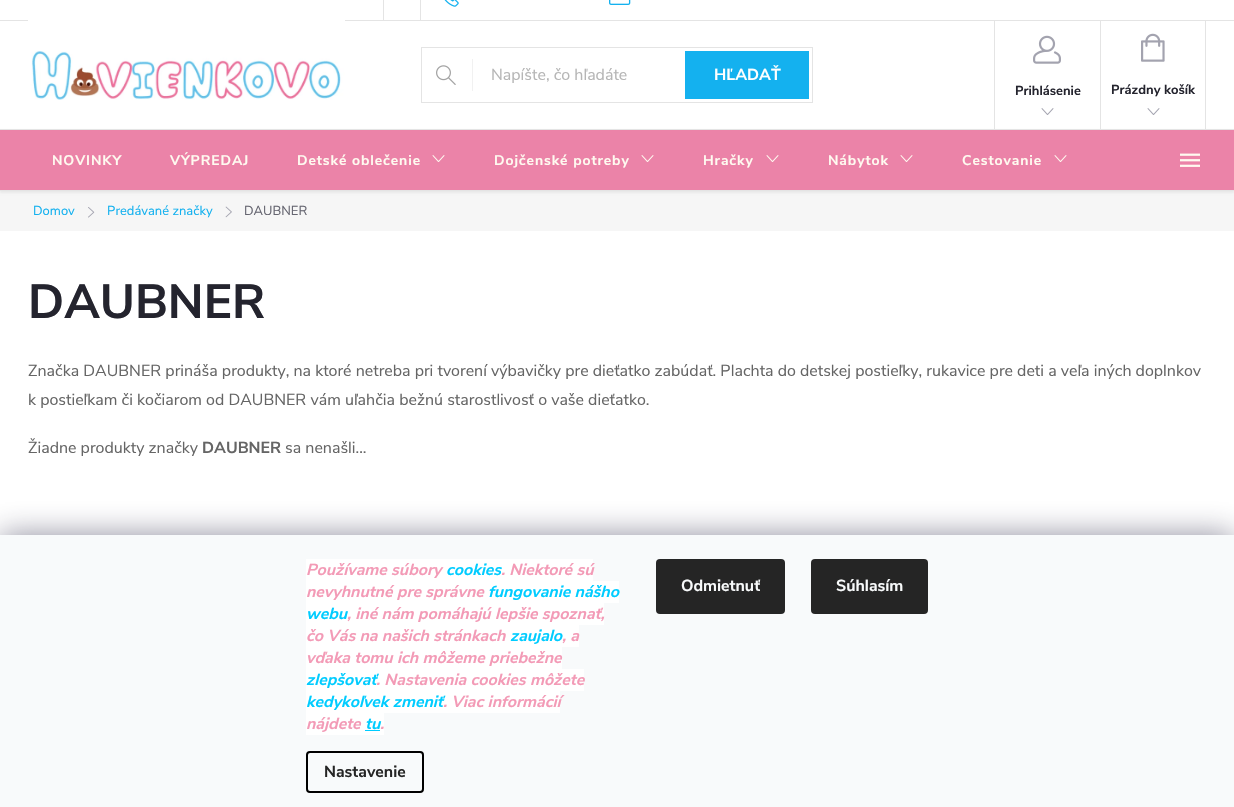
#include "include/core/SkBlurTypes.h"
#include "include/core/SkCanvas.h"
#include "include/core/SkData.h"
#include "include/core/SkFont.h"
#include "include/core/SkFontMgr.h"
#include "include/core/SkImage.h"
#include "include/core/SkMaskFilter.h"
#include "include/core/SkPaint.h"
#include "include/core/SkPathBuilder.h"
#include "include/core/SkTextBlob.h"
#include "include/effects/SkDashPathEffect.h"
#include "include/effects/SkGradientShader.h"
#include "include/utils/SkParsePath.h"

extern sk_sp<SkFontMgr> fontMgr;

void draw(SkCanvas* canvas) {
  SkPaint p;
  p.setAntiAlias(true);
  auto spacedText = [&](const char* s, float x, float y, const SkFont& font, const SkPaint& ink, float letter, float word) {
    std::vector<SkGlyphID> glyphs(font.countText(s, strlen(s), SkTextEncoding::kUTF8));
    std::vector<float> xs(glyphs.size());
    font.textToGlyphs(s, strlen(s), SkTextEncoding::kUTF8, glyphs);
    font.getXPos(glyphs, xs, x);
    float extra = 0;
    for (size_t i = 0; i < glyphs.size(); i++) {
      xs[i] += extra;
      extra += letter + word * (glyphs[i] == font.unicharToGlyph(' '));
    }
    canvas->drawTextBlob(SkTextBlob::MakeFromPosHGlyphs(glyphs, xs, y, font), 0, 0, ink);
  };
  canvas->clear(SK_ColorWHITE);
  p.setColor(SkColorSetRGB(228, 228, 228));
  canvas->drawRect(SkRect::MakeLTRB(0, 20, 1234, 21), p);
  canvas->drawRect(SkRect::MakeLTRB(420, 0, 421, 20), p);
  canvas->drawRect(SkRect::MakeLTRB(383, 0, 384, 20), p);
  canvas->drawImageRect(SkImages::DeferredFromEncodedData(SkData::MakeFromFileName("images/1.png")), SkRect::MakeLTRB(444, 0, 459, 7), SkSamplingOptions());
  canvas->drawImageRect(SkImages::DeferredFromEncodedData(SkData::MakeFromFileName("images/2.png")), SkRect::MakeLTRB(609, 0, 631, 5), SkSamplingOptions());
  canvas->drawImageRect(SkImages::DeferredFromEncodedData(SkData::MakeFromFileName("images/3.png")), SkRect::MakeLTRB(28, 0, 345, 100), SkSamplingOptions());
  p.setStyle(SkPaint::kStroke_Style);
  p.setStrokeWidth(1);
  canvas->drawRect(SkRect::MakeLTRB(421.5f, 47.5f, 812.5f, 102.5f), p);
  p.setStyle(SkPaint::kFill_Style);
  p.setColor(SkColorSetRGB(241, 241, 241));
  canvas->drawRect(SkRect::MakeLTRB(472, 59, 473, 91), p);
  canvas->drawImageRect(SkImages::DeferredFromEncodedData(SkData::MakeFromFileName("images/4.png")), SkRect::MakeLTRB(436, 65, 456, 85), SkSamplingOptions());
  p.setColor(SkColorSetRGB(20, 177, 239));
  canvas->drawRect(SkRect::MakeLTRB(685, 51, 809, 99), p);
  p.setColor(SkColorSetRGB(228, 228, 228));
  canvas->drawRect(SkRect::MakeLTRB(994, 21, 995, 129), p);
  canvas->drawImageRect(SkImages::DeferredFromEncodedData(SkData::MakeFromFileName("images/5.png")), SkRect::MakeLTRB(1033, 35, 1061, 64), SkSamplingOptions());
  canvas->drawImageRect(SkImages::DeferredFromEncodedData(SkData::MakeFromFileName("images/6.png")), SkRect::MakeLTRB(1041, 108, 1054, 115), SkSamplingOptions());
  canvas->drawRect(SkRect::MakeLTRB(1205, 21, 1206, 129), p);
  canvas->drawRect(SkRect::MakeLTRB(1100, 21, 1101, 129), p);
  canvas->drawImageRect(SkImages::DeferredFromEncodedData(SkData::MakeFromFileName("images/7.png")), SkRect::MakeLTRB(1141, 33, 1165, 62), SkSamplingOptions());
  canvas->drawImageRect(SkImages::DeferredFromEncodedData(SkData::MakeFromFileName("images/6.png")), SkRect::MakeLTRB(1147, 108, 1160, 115), SkSamplingOptions());
  p.setColor(SkColorSetRGB(246, 246, 246));
  canvas->drawRect(SkRect::MakeLTRB(0, 191, 1234, 231), p);
  p.setColor(SkColorSetARGB(13, 0, 0, 0));
  p.setMaskFilter(SkMaskFilter::MakeBlur(kNormal_SkBlurStyle, 1));
  canvas->drawRect(SkRect::MakeLTRB(0, 131, 1234, 193), p);
  p.setMaskFilter(nullptr);
  p.setColor(SkColorSetRGB(235, 131, 168));
  canvas->drawRect(SkRect::MakeLTRB(0, 130, 1234, 190), p);
  canvas->drawImageRect(SkImages::DeferredFromEncodedData(SkData::MakeFromFileName("images/8.png")), SkRect::MakeLTRB(432, 155, 445, 162), SkSamplingOptions());
  canvas->drawImageRect(SkImages::DeferredFromEncodedData(SkData::MakeFromFileName("images/8.png")), SkRect::MakeLTRB(641, 155, 654, 162), SkSamplingOptions());
  canvas->drawImageRect(SkImages::DeferredFromEncodedData(SkData::MakeFromFileName("images/8.png")), SkRect::MakeLTRB(766, 155, 779, 162), SkSamplingOptions());
  canvas->drawImageRect(SkImages::DeferredFromEncodedData(SkData::MakeFromFileName("images/8.png")), SkRect::MakeLTRB(900, 155, 913, 162), SkSamplingOptions());
  canvas->drawImageRect(SkImages::DeferredFromEncodedData(SkData::MakeFromFileName("images/8.png")), SkRect::MakeLTRB(1054, 155, 1067, 162), SkSamplingOptions());
  canvas->drawImageRect(SkImages::DeferredFromEncodedData(SkData::MakeFromFileName("images/9.png")), SkRect::MakeLTRB(1180, 153, 1200, 167), SkSamplingOptions());
  p.setColor(SkColorSetRGB(228, 228, 228));
  canvas->drawRect(SkRect::MakeLTRB(0, 129, 1234, 130), p);
  canvas->drawRect(SkRect::MakeLTRB(0, 190, 1234, 191), p);
  canvas->drawImageRect(SkImages::DeferredFromEncodedData(SkData::MakeFromFileName("images/10.png")), SkRect::MakeLTRB(88, 207, 95, 218), SkSamplingOptions());
  canvas->drawImageRect(SkImages::DeferredFromEncodedData(SkData::MakeFromFileName("images/11.png")), SkRect::MakeLTRB(225, 206, 232, 218), SkSamplingOptions());
  p.setColor(SkColorSetARGB(128, 27, 25, 57));
  p.setMaskFilter(SkMaskFilter::MakeBlur(kNormal_SkBlurStyle, 15));
  canvas->drawRect(SkRect::MakeLTRB(0, 535, 1234, 807), p);
  p.setMaskFilter(nullptr);
  p.setColor(SkColorSetRGB(248, 250, 251));
  canvas->drawRect(SkRect::MakeLTRB(0, 535, 1234, 807), p);
  p.setColor(SK_ColorWHITE);
  canvas->drawRect(SkRect::MakeLTRB(306, 559, 593, 581), p);
  canvas->drawRect(SkRect::MakeLTRB(306, 581, 619, 603), p);
  canvas->drawRect(SkRect::MakeLTRB(306, 603, 604, 625), p);
  canvas->drawRect(SkRect::MakeLTRB(306, 625, 579, 647), p);
  canvas->drawRect(SkRect::MakeLTRB(306, 647, 562, 669), p);
  canvas->drawRect(SkRect::MakeLTRB(306, 669, 584, 691), p);
  canvas->drawRect(SkRect::MakeLTRB(306, 691, 560, 713), p);
  canvas->drawRect(SkRect::MakeLTRB(306, 713, 384, 735), p);
  p.setColor(SkColorSetRGB(0, 204, 255));
  canvas->drawRect(SkRect::MakeLTRB(365, 730, 380, 731), p);
  p.setStyle(SkPaint::kStroke_Style);
  p.setStrokeWidth(2);
  p.setColor(SK_ColorBLACK);
  canvas->drawRoundRect(SkRect::MakeLTRB(307, 752, 423, 792), 3, 3, p);
  p.setStyle(SkPaint::kFill_Style);
  p.setColor(SkColorSetRGB(37, 37, 37));
  canvas->drawRoundRect(SkRect::MakeLTRB(656, 559, 785, 614), 4, 4, p);
  canvas->drawRoundRect(SkRect::MakeLTRB(811, 559, 928, 614), 4, 4, p);
  SkFont font1(fontMgr->matchFamilyStyle("Nunito Sans", SkFontStyle::Normal()), 16);
  font1.setSubpixel(true);
  p.setColor(SkColorSetRGB(182, 182, 182));
  canvas->drawString("Napíšte, čo hľadáte", 491, 80, font1, p);
  SkFont font2(fontMgr->matchFamilyStyle("Nunito Sans", SkFontStyle::Bold()), 16);
  font2.setSubpixel(true);
  p.setColor(SK_ColorWHITE);
  canvas->drawString("HĽADAŤ", 714, 80, font2, p);
  SkFont font3(fontMgr->matchFamilyStyle("Nunito Sans", SkFontStyle::Bold()), 13);
  font3.setSubpixel(true);
  p.setColor(SkColorSetRGB(36, 36, 46));
  canvas->drawString("Prihlásenie", 1015, 95, font3, p);
  canvas->drawString("Prázdny košík", 1111, 94, font3, p);
  SkFont font4(fontMgr->matchFamilyStyle("Nunito Sans", SkFontStyle::Bold()), 14);
  font4.setSubpixel(true);
  p.setColor(SkColorSetRGB(255, 250, 240));
  spacedText("NOVINKY", 52, 165, font4, p, 0.9f, 0);
  spacedText("VÝPREDAJ", 170, 165, font4, p, 0.9f, 0);
  spacedText("Detské oblečenie", 297, 165, font4, p, 0.9f, 0);
  spacedText("Dojčenské potreby", 494, 165, font4, p, 0.9f, 0);
  spacedText("Hračky", 703, 165, font4, p, 0.9f, 0);
  spacedText("Nábytok", 828, 165, font4, p, 0.9f, 0);
  spacedText("Cestovanie", 962, 165, font4, p, 0.9f, 0);
  SkFont font5(fontMgr->matchFamilyStyle("Nunito Sans", SkFontStyle::Normal()), 13);
  font5.setSubpixel(true);
  p.setColor(SkColorSetRGB(20, 177, 239));
  canvas->drawString("Domov", 33, 215, font5, p);
  canvas->drawString("Predávané značky", 107, 215, font5, p);
  p.setColor(SkColorSetRGB(101, 101, 112));
  canvas->drawString("DAUBNER", 244, 215, font5, p);
  SkFont font6(fontMgr->matchFamilyStyle("Nunito Sans", SkFontStyle::Bold()), 48);
  font6.setSubpixel(true);
  p.setColor(SkColorSetRGB(36, 36, 46));
  canvas->drawString("DAUBNER", 28, 318, font6, p);
  p.setColor(SkColorSetRGB(101, 101, 101));
  canvas->drawString("Značka DAUBNER prináša produkty, na ktoré netreba pri tvorení výbavičky pre dieťatko zabúdať. Plachta do detskej postieľky, rukavice pre deti a veľa iných doplnkov", 28, 376, font1, p);
  canvas->drawString("k postieľkam či kočiarom od DAUBNER vám uľahčia bežnú starostlivosť o vaše dieťatko.", 28, 405, font1, p);
  canvas->drawString("Žiadne produkty značky", 28, 453, font1, p);
  canvas->drawString("DAUBNER", 202, 453, font2, p);
  canvas->drawString("sa nenašli...", 285, 453, font1, p);
  SkFont font7(fontMgr->matchFamilyStyle("Nunito Sans", SkFontStyle::BoldItalic()), 16);
  font7.setSubpixel(true);
  p.setColor(SkColorSetRGB(243, 154, 182));
  canvas->drawString("Používame súbory", 306, 575, font7, p);
  p.setColor(SkColorSetRGB(0, 204, 255));
  canvas->drawString("cookies", 446, 575, font7, p);
  p.setColor(SkColorSetRGB(243, 154, 182));
  canvas->drawString(". Niektoré sú", 501, 575, font7, p);
  canvas->drawString("nevyhnutné pre správne", 306, 597, font7, p);
  p.setColor(SkColorSetRGB(0, 204, 255));
  canvas->drawString("fungovanie nášho", 488, 597, font7, p);
  canvas->drawString("webu", 306, 619, font7, p);
  p.setColor(SkColorSetRGB(243, 154, 182));
  canvas->drawString(", iné nám pomáhajú lepšie spoznať,", 347, 619, font7, p);
  canvas->drawString("čo Vás na našich stránkach", 306, 641, font7, p);
  p.setColor(SkColorSetRGB(0, 204, 255));
  canvas->drawString("zaujalo", 510, 641, font7, p);
  p.setColor(SkColorSetRGB(243, 154, 182));
  canvas->drawString(", a", 562, 641, font7, p);
  canvas->drawString("vďaka tomu ich môžeme priebežne", 306, 663, font7, p);
  p.setColor(SkColorSetRGB(0, 204, 255));
  canvas->drawString("zlepšovať", 306, 685, font7, p);
  p.setColor(SkColorSetRGB(243, 154, 182));
  canvas->drawString(". Nastavenia cookies môžete", 376, 685, font7, p);
  p.setColor(SkColorSetRGB(0, 204, 255));
  canvas->drawString("kedykoľvek zmeniť", 306, 707, font7, p);
  p.setColor(SkColorSetRGB(243, 154, 182));
  canvas->drawString(". Viac informácií", 443, 707, font7, p);
  canvas->drawString("nájdete", 306, 729, font7, p);
  p.setColor(SkColorSetRGB(0, 204, 255));
  canvas->drawString("tu", 365, 729, font7, p);
  p.setColor(SkColorSetRGB(243, 154, 182));
  canvas->drawString(".", 380, 729, font7, p);
  p.setColor(SkColorSetRGB(37, 37, 37));
  canvas->drawString("Nastavenie", 324, 777, font2, p);
  p.setColor(SkColorSetRGB(248, 250, 251));
  canvas->drawString("Odmietnuť", 681, 591, font2, p);
  canvas->drawString("Súhlasím", 836, 591, font2, p);
}
